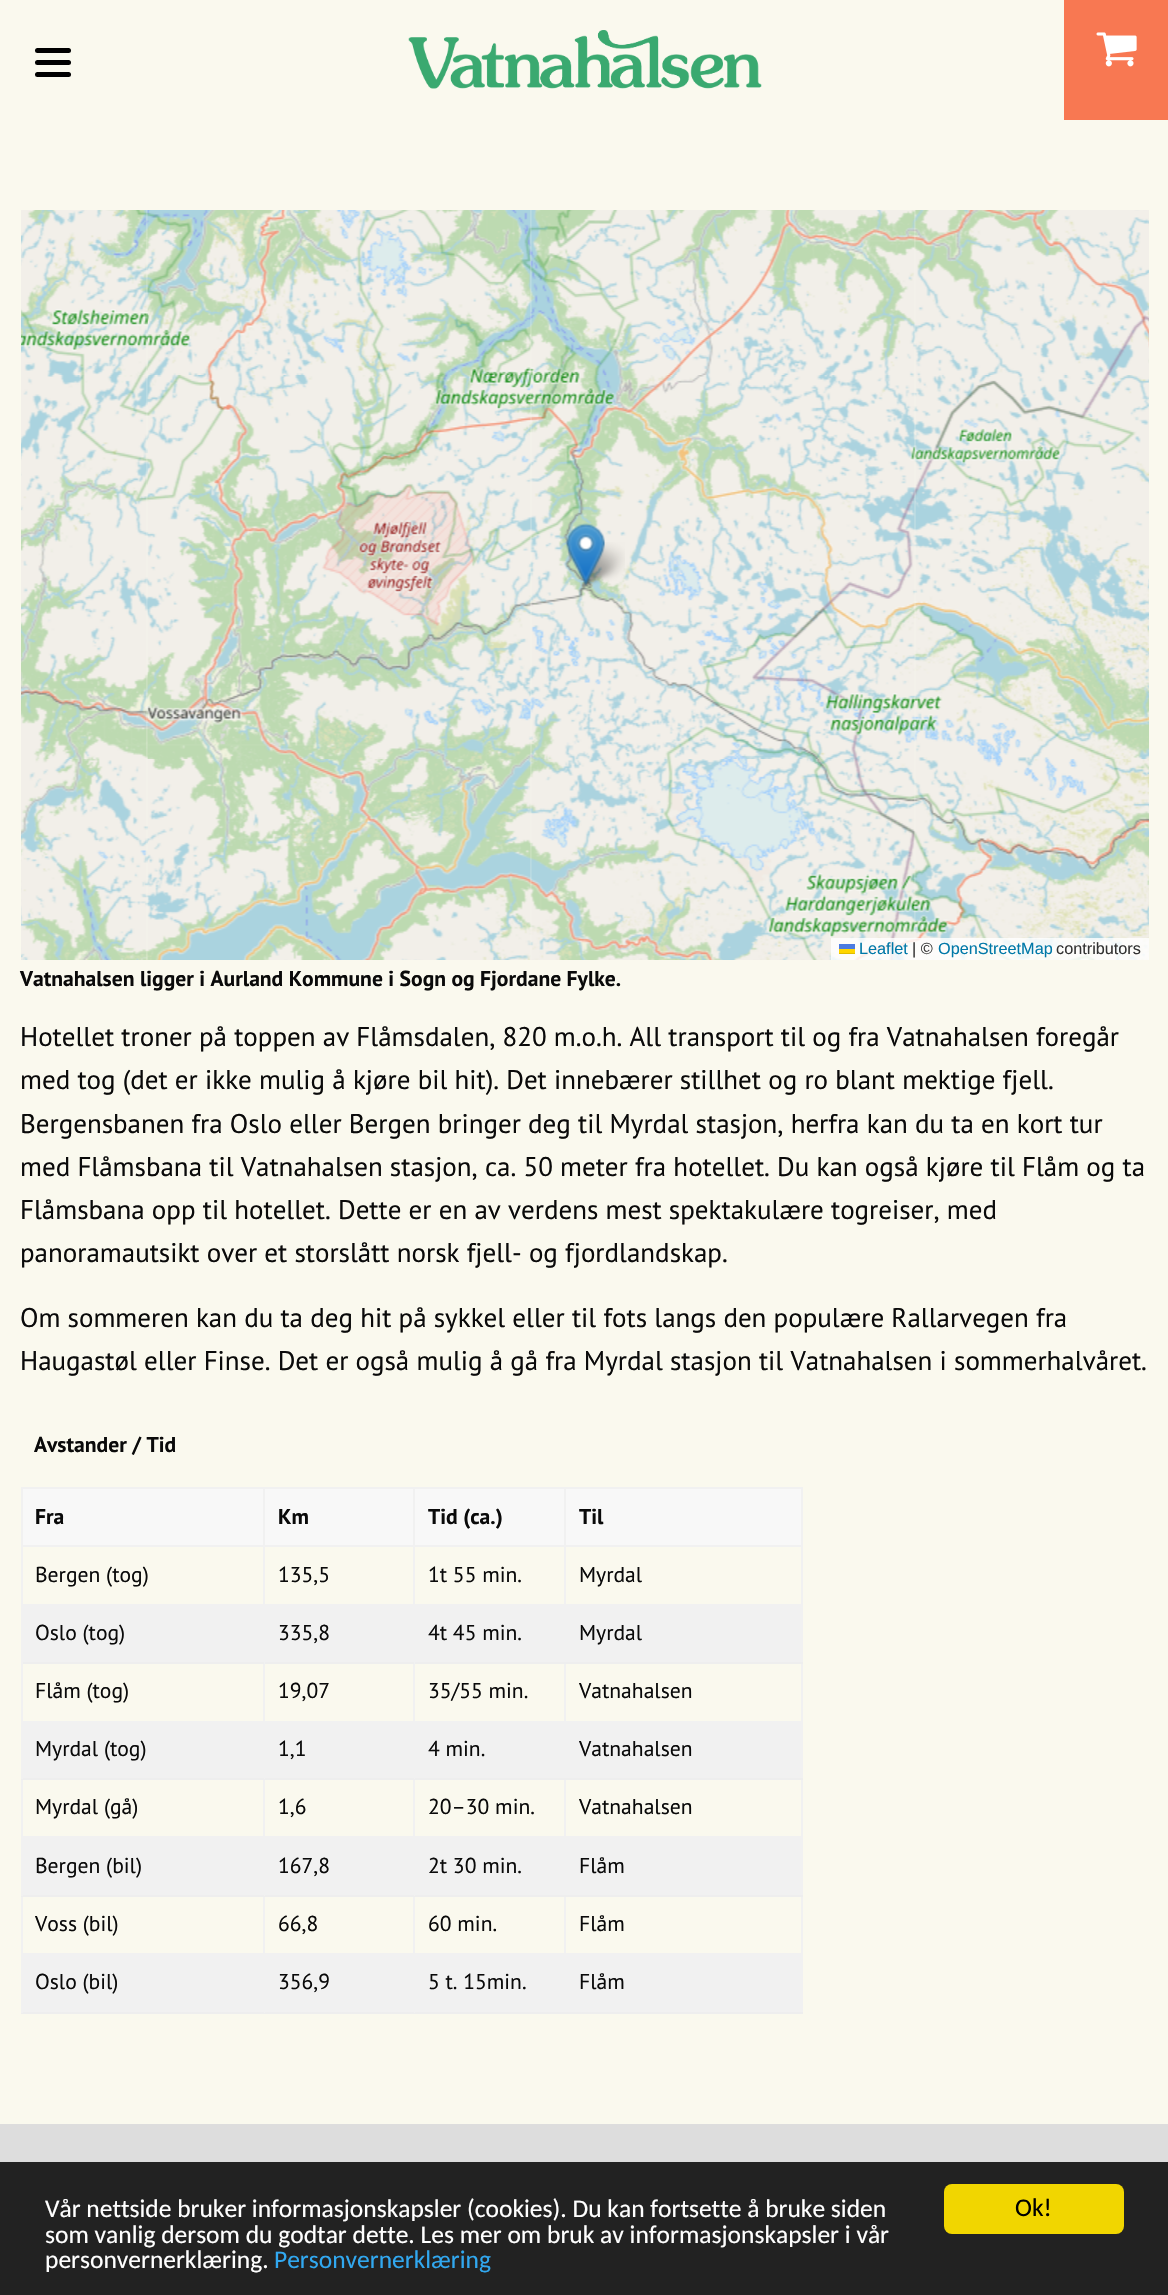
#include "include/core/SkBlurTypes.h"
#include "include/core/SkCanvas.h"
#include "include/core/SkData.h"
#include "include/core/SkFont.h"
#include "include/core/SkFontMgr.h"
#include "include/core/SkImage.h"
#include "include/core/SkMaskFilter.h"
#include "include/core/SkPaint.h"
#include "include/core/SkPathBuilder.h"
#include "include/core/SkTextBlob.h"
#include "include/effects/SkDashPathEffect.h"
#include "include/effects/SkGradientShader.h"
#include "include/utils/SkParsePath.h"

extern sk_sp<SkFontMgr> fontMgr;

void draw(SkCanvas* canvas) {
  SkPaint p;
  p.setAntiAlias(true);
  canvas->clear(SkColorSetRGB(250, 249, 238));
  p.setColor(SK_ColorBLACK);
  canvas->drawRoundRect(SkRect::MakeLTRB(35, 48, 71, 53), 2.5f, 2.5f, p);
  canvas->drawRoundRect(SkRect::MakeLTRB(35, 60, 71, 65), 2.5f, 2.5f, p);
  canvas->drawRoundRect(SkRect::MakeLTRB(35, 72, 71, 77), 2.5f, 2.5f, p);
  p.setColor(SkColorSetRGB(248, 120, 82));
  canvas->drawRect(SkRect::MakeLTRB(1064, 0, 1168, 120), p);
  canvas->drawImageRect(SkImages::DeferredFromEncodedData(SkData::MakeFromFileName("images/1.png")), SkRect::MakeLTRB(1096, 32, 1137, 67), SkSamplingOptions());
  canvas->drawImageRect(SkImages::DeferredFromEncodedData(SkData::MakeFromFileName("images/2.png")), SkRect::MakeLTRB(408, 30, 762, 89), SkSamplingOptions());
  canvas->drawImageRect(SkImages::DeferredFromEncodedData(SkData::MakeFromFileName("images/4.png")), SkRect::MakeLTRB(146, 210, 532, 375), SkSamplingOptions());
  canvas->drawImageRect(SkImages::DeferredFromEncodedData(SkData::MakeFromFileName("images/3.png")), SkRect::MakeLTRB(21, 210, 148, 375), SkSamplingOptions());
  canvas->drawImageRect(SkImages::DeferredFromEncodedData(SkData::MakeFromFileName("images/5.png")), SkRect::MakeLTRB(530, 210, 916, 375), SkSamplingOptions());
  canvas->drawImageRect(SkImages::DeferredFromEncodedData(SkData::MakeFromFileName("images/6.png")), SkRect::MakeLTRB(914, 210, 1149, 375), SkSamplingOptions());
  canvas->drawImageRect(SkImages::DeferredFromEncodedData(SkData::MakeFromFileName("images/8.png")), SkRect::MakeLTRB(146, 375, 532, 759), SkSamplingOptions());
  canvas->drawImageRect(SkImages::DeferredFromEncodedData(SkData::MakeFromFileName("images/7.png")), SkRect::MakeLTRB(21, 375, 148, 759), SkSamplingOptions());
  canvas->drawImageRect(SkImages::DeferredFromEncodedData(SkData::MakeFromFileName("images/9.png")), SkRect::MakeLTRB(530, 375, 916, 759), SkSamplingOptions());
  canvas->drawImageRect(SkImages::DeferredFromEncodedData(SkData::MakeFromFileName("images/10.png")), SkRect::MakeLTRB(914, 375, 1149, 759), SkSamplingOptions());
  canvas->drawImageRect(SkImages::DeferredFromEncodedData(SkData::MakeFromFileName("images/12.png")), SkRect::MakeLTRB(146, 759, 532, 960), SkSamplingOptions());
  canvas->drawImageRect(SkImages::DeferredFromEncodedData(SkData::MakeFromFileName("images/11.png")), SkRect::MakeLTRB(21, 759, 148, 960), SkSamplingOptions());
  canvas->drawImageRect(SkImages::DeferredFromEncodedData(SkData::MakeFromFileName("images/13.png")), SkRect::MakeLTRB(530, 759, 916, 960), SkSamplingOptions());
  canvas->drawImageRect(SkImages::DeferredFromEncodedData(SkData::MakeFromFileName("images/14.png")), SkRect::MakeLTRB(914, 759, 1149, 960), SkSamplingOptions());
  canvas->drawImageRect(SkImages::DeferredFromEncodedData(SkData::MakeFromFileName("images/16.png")), SkRect::MakeLTRB(580, 542, 625, 586), SkSamplingOptions());
  canvas->drawImageRect(SkImages::DeferredFromEncodedData(SkData::MakeFromFileName("images/15.png")), SkRect::MakeLTRB(566, 523, 605, 586), SkSamplingOptions());
  p.setColor(SkColorSetARGB(204, 255, 255, 255));
  canvas->drawRect(SkRect::MakeLTRB(831, 938, 1149, 960), p);
  p.setColor(SkColorSetRGB(76, 123, 225));
  canvas->drawRect(SkRect::MakeLTRB(839, 944, 855, 949), p);
  p.setColor(SkColorSetRGB(255, 213, 0));
  canvas->drawRect(SkRect::MakeLTRB(839, 949, 855, 953), p);
  p.setColor(SkColorSetRGB(224, 188, 0));
  canvas->drawRect(SkRect::MakeLTRB(839, 953, 855, 954), p);
  p.setColor(SkColorSetRGB(248, 248, 248));
  canvas->drawRect(SkRect::MakeLTRB(23, 1489, 801, 1545), p);
  p.setColor(SkColorSetRGB(241, 241, 241));
  canvas->drawRect(SkRect::MakeLTRB(21, 1487, 803, 1489), p);
  canvas->drawRect(SkRect::MakeLTRB(21, 1545, 803, 1547), p);
  canvas->drawRect(SkRect::MakeLTRB(801, 1545, 803, 2013), p);
  canvas->drawRect(SkRect::MakeLTRB(801, 1487, 803, 1547), p);
  canvas->drawRect(SkRect::MakeLTRB(21, 1545, 23, 1953), p);
  canvas->drawRect(SkRect::MakeLTRB(21, 1487, 23, 1547), p);
  canvas->drawRect(SkRect::MakeLTRB(21, 1604, 803, 1606), p);
  canvas->drawRect(SkRect::MakeLTRB(263, 1487, 265, 1605), p);
  canvas->drawRect(SkRect::MakeLTRB(413, 1487, 415, 1605), p);
  canvas->drawRect(SkRect::MakeLTRB(564, 1487, 566, 1605), p);
  canvas->drawRect(SkRect::MakeLTRB(23, 1606, 801, 1662), p);
  canvas->drawRect(SkRect::MakeLTRB(23, 1721, 801, 1778), p);
  canvas->drawRect(SkRect::MakeLTRB(564, 1662, 566, 1722), p);
  p.setColor(SkColorSetRGB(238, 238, 238));
  canvas->drawRect(SkRect::MakeLTRB(564, 1662, 803, 1664), p);
  p.setColor(SkColorSetRGB(241, 241, 241));
  canvas->drawRect(SkRect::MakeLTRB(564, 1662, 566, 1664), p);
  canvas->drawRect(SkRect::MakeLTRB(413, 1662, 415, 1722), p);
  p.setColor(SkColorSetRGB(238, 238, 238));
  canvas->drawRect(SkRect::MakeLTRB(413, 1662, 566, 1664), p);
  p.setColor(SkColorSetRGB(241, 241, 241));
  canvas->drawRect(SkRect::MakeLTRB(413, 1662, 415, 1664), p);
  canvas->drawRect(SkRect::MakeLTRB(263, 1662, 265, 1722), p);
  p.setColor(SkColorSetRGB(238, 238, 238));
  canvas->drawRect(SkRect::MakeLTRB(263, 1662, 414, 1664), p);
  p.setColor(SkColorSetRGB(241, 241, 241));
  canvas->drawRect(SkRect::MakeLTRB(263, 1662, 265, 1664), p);
  p.setColor(SkColorSetRGB(238, 238, 238));
  canvas->drawRect(SkRect::MakeLTRB(21, 1662, 264, 1664), p);
  p.setColor(SkColorSetRGB(241, 241, 241));
  canvas->drawRect(SkRect::MakeLTRB(21, 1662, 23, 1664), p);
  canvas->drawRect(SkRect::MakeLTRB(21, 1836, 803, 1838), p);
  canvas->drawRect(SkRect::MakeLTRB(564, 1778, 566, 1838), p);
  p.setColor(SkColorSetRGB(238, 238, 238));
  canvas->drawRect(SkRect::MakeLTRB(564, 1778, 803, 1780), p);
  p.setColor(SkColorSetRGB(241, 241, 241));
  canvas->drawRect(SkRect::MakeLTRB(564, 1778, 566, 1779), p);
  canvas->drawRect(SkRect::MakeLTRB(413, 1778, 415, 1838), p);
  p.setColor(SkColorSetRGB(238, 238, 238));
  canvas->drawRect(SkRect::MakeLTRB(413, 1778, 566, 1780), p);
  p.setColor(SkColorSetRGB(241, 241, 241));
  canvas->drawRect(SkRect::MakeLTRB(413, 1778, 415, 1779), p);
  canvas->drawRect(SkRect::MakeLTRB(263, 1778, 265, 1838), p);
  p.setColor(SkColorSetRGB(238, 238, 238));
  canvas->drawRect(SkRect::MakeLTRB(263, 1778, 414, 1780), p);
  p.setColor(SkColorSetRGB(241, 241, 241));
  canvas->drawRect(SkRect::MakeLTRB(263, 1778, 265, 1779), p);
  p.setColor(SkColorSetRGB(238, 238, 238));
  canvas->drawRect(SkRect::MakeLTRB(21, 1778, 264, 1780), p);
  p.setColor(SkColorSetRGB(241, 241, 241));
  canvas->drawRect(SkRect::MakeLTRB(21, 1778, 23, 1779), p);
  canvas->drawRect(SkRect::MakeLTRB(23, 1838, 801, 1895), p);
  canvas->drawRect(SkRect::MakeLTRB(23, 1953, 801, 2012), p);
  canvas->drawRect(SkRect::MakeLTRB(564, 1895, 566, 1955), p);
  p.setColor(SkColorSetRGB(238, 238, 238));
  canvas->drawRect(SkRect::MakeLTRB(564, 1895, 803, 1897), p);
  p.setColor(SkColorSetRGB(241, 241, 241));
  canvas->drawRect(SkRect::MakeLTRB(564, 1895, 566, 1896), p);
  canvas->drawRect(SkRect::MakeLTRB(413, 1895, 415, 1955), p);
  p.setColor(SkColorSetRGB(238, 238, 238));
  canvas->drawRect(SkRect::MakeLTRB(413, 1895, 566, 1897), p);
  p.setColor(SkColorSetRGB(241, 241, 241));
  canvas->drawRect(SkRect::MakeLTRB(413, 1895, 415, 1896), p);
  canvas->drawRect(SkRect::MakeLTRB(263, 1895, 265, 1955), p);
  p.setColor(SkColorSetRGB(238, 238, 238));
  canvas->drawRect(SkRect::MakeLTRB(263, 1895, 414, 1897), p);
  p.setColor(SkColorSetRGB(241, 241, 241));
  canvas->drawRect(SkRect::MakeLTRB(263, 1895, 265, 1896), p);
  p.setColor(SkColorSetRGB(238, 238, 238));
  canvas->drawRect(SkRect::MakeLTRB(21, 1895, 264, 1897), p);
  p.setColor(SkColorSetRGB(241, 241, 241));
  canvas->drawRect(SkRect::MakeLTRB(21, 1895, 23, 1896), p);
  p.setColor(SkColorSetRGB(238, 238, 238));
  canvas->drawRect(SkRect::MakeLTRB(564, 2012, 803, 2014), p);
  p.setColor(SkColorSetRGB(241, 241, 241));
  canvas->drawRect(SkRect::MakeLTRB(564, 2012, 566, 2013), p);
  p.setColor(SkColorSetRGB(238, 238, 238));
  canvas->drawRect(SkRect::MakeLTRB(413, 2012, 566, 2014), p);
  p.setColor(SkColorSetRGB(241, 241, 241));
  canvas->drawRect(SkRect::MakeLTRB(413, 2012, 415, 2013), p);
  p.setColor(SkColorSetRGB(238, 238, 238));
  canvas->drawRect(SkRect::MakeLTRB(263, 2012, 414, 2014), p);
  p.setColor(SkColorSetRGB(241, 241, 241));
  canvas->drawRect(SkRect::MakeLTRB(263, 2012, 265, 2013), p);
  p.setColor(SkColorSetRGB(238, 238, 238));
  canvas->drawRect(SkRect::MakeLTRB(21, 2012, 264, 2014), p);
  p.setColor(SkColorSetRGB(241, 241, 241));
  canvas->drawRect(SkRect::MakeLTRB(21, 1953, 23, 2013), p);
  p.setColor(SkColorSetRGB(221, 221, 221));
  canvas->drawRect(SkRect::MakeLTRB(0, 2124, 1168, 2162), p);
  p.setColor(SkColorSetRGB(34, 34, 34));
  canvas->drawRect(SkRect::MakeLTRB(0, 2162, 1168, 2295), p);
  p.setColor(SkColorSetRGB(241, 214, 0));
  canvas->drawRoundRect(SkRect::MakeLTRB(944, 2184, 1124, 2234), 8, 8, p);
  SkFont font1(fontMgr->matchFamilyStyle("Liberation Sans", SkFontStyle::Normal()), 16.25f);
  font1.setSubpixel(true);
  p.setColor(SkColorSetRGB(0, 120, 168));
  canvas->drawString("Leaflet", 859, 954, font1, p);
  p.setColor(SkColorSetRGB(51, 51, 51));
  canvas->drawString("| ©", 912, 954, font1, p);
  p.setColor(SkColorSetRGB(0, 120, 168));
  canvas->drawString("OpenStreetMap", 938, 954, font1, p);
  p.setColor(SkColorSetRGB(51, 51, 51));
  canvas->drawString("contributors", 1056, 954, font1, p);
  SkFont font2(fontMgr->matchFamilyStyle("PT Sans", SkFontStyle::Bold()), 21.6f);
  font2.setSubpixel(true);
  p.setColor(SkColorSetRGB(10, 10, 10));
  canvas->drawString("Vatnahalsen ligger i Aurland Kommune i Sogn og Fjordane Fylke.", 20, 986, font2, p);
  SkFont font3(fontMgr->matchFamilyStyle("PT Sans", SkFontStyle::Normal()), 27);
  font3.setSubpixel(true);
  canvas->drawString("Hotellet troner på toppen av Flåmsdalen, 820 m.o.h. All transport til og fra Vatnahalsen foregår", 20, 1046, font3, p);
  canvas->drawString("med tog (det er ikke mulig å kjøre bil hit). Det innebærer stillhet og ro blant mektige fjell.", 20, 1089, font3, p);
  canvas->drawString("Bergensbanen fra Oslo eller Bergen bringer deg til Myrdal stasjon, herfra kan du ta en kort tur", 20, 1133, font3, p);
  canvas->drawString("med Flåmsbana til Vatnahalsen stasjon, ca. 50 meter fra hotellet. Du kan også kjøre til Flåm og ta", 20, 1176, font3, p);
  canvas->drawString("Flåmsbana opp til hotellet. Dette er en av verdens mest spektakulære togreiser, med", 20, 1219, font3, p);
  canvas->drawString("panoramautsikt over et storslått norsk fjell- og fjordlandskap.", 20, 1262, font3, p);
  canvas->drawString("Om sommeren kan du ta deg hit på sykkel eller til fots langs den populære Rallarvegen fra", 20, 1327, font3, p);
  canvas->drawString("Haugastøl eller Finse. Det er også mulig å gå fra Myrdal stasjon til Vatnahalsen i sommerhalvåret.", 20, 1370, font3, p);
  canvas->drawString("Avstander / Tid", 34, 1452, font2, p);
  canvas->drawString("Fra", 35, 1524, font2, p);
  canvas->drawString("Km", 278, 1524, font2, p);
  canvas->drawString("Tid (ca.)", 428, 1524, font2, p);
  canvas->drawString("Til", 579, 1524, font2, p);
  SkFont font4(fontMgr->matchFamilyStyle("PT Sans", SkFontStyle::Normal()), 21.6f);
  font4.setSubpixel(true);
  canvas->drawString("Bergen (tog)", 35, 1582, font4, p);
  canvas->drawString("135,5", 278, 1582, font4, p);
  canvas->drawString("1t 55 min.", 428, 1582, font4, p);
  canvas->drawString("Myrdal", 579, 1582, font4, p);
  canvas->drawString("Oslo (tog)", 35, 1640, font4, p);
  canvas->drawString("335,8", 278, 1640, font4, p);
  canvas->drawString("4t 45 min.", 428, 1640, font4, p);
  canvas->drawString("Myrdal", 579, 1640, font4, p);
  canvas->drawString("Flåm (tog)", 35, 1698, font4, p);
  canvas->drawString("19,07", 278, 1698, font4, p);
  canvas->drawString("35/55 min.", 428, 1698, font4, p);
  canvas->drawString("Vatnahalsen", 579, 1698, font4, p);
  canvas->drawString("Myrdal (tog)", 35, 1756, font4, p);
  canvas->drawString("1,1", 278, 1756, font4, p);
  canvas->drawString("4 min.", 428, 1756, font4, p);
  canvas->drawString("Vatnahalsen", 579, 1756, font4, p);
  canvas->drawString("Myrdal (gå)", 35, 1814, font4, p);
  canvas->drawString("1,6", 278, 1814, font4, p);
  canvas->drawString("20–30 min.", 428, 1814, font4, p);
  canvas->drawString("Vatnahalsen", 579, 1814, font4, p);
  canvas->drawString("Bergen (bil)", 35, 1873, font4, p);
  canvas->drawString("167,8", 278, 1873, font4, p);
  canvas->drawString("2t 30 min.", 428, 1873, font4, p);
  canvas->drawString("Flåm", 579, 1873, font4, p);
  canvas->drawString("Voss (bil)", 35, 1931, font4, p);
  canvas->drawString("66,8", 278, 1931, font4, p);
  canvas->drawString("60 min.", 428, 1931, font4, p);
  canvas->drawString("Flåm", 579, 1931, font4, p);
  canvas->drawString("Oslo (bil)", 35, 1989, font4, p);
  canvas->drawString("356,9", 278, 1989, font4, p);
  canvas->drawString("5 t. 15min.", 428, 1989, font4, p);
  canvas->drawString("Flåm", 579, 1989, font4, p);
  SkFont font5(fontMgr->matchFamilyStyle("Carlito", SkFontStyle::Normal()), 25.5f);
  font5.setSubpixel(true);
  p.setColor(SK_ColorWHITE);
  canvas->drawString("Vår nettside bruker informasjonskapsler (cookies). Du kan fortsette å bruke siden", 45, 2217, font5, p);
  canvas->drawString("som vanlig dersom du godtar dette. Les mer om bruk av informasjonskapsler i vår", 45, 2243, font5, p);
  canvas->drawString("personvernerklæring.", 45, 2268, font5, p);
  p.setColor(SkColorSetRGB(49, 168, 240));
  canvas->drawString("Personvernerklæring", 274, 2268, font5, p);
  p.setColor(SK_ColorBLACK);
  canvas->drawString("Ok!", 1015, 2216, font5, p);
}
